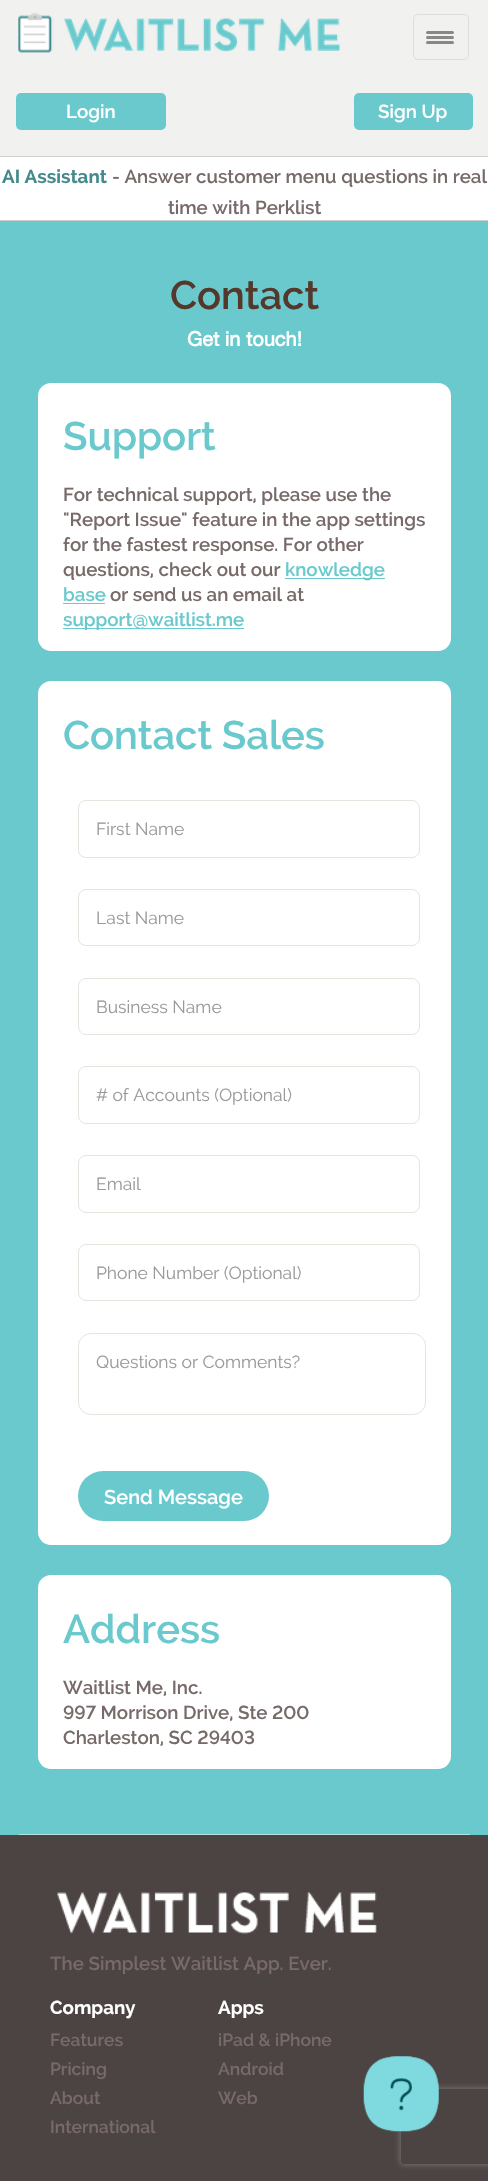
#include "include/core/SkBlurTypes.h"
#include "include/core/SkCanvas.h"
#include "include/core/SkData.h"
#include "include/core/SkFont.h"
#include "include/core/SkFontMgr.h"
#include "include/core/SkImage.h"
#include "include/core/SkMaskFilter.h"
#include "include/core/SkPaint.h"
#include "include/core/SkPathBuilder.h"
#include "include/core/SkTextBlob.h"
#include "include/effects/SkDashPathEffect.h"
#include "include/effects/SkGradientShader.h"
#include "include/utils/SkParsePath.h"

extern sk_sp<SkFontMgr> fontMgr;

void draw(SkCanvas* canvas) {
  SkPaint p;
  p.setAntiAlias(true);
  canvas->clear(SkColorSetRGB(241, 241, 239));
  canvas->drawImageRect(SkImages::DeferredFromEncodedData(SkData::MakeFromFileName("images/1.png")), SkRect::MakeLTRB(18, 13, 341, 53), SkSamplingOptions());
  p.setStyle(SkPaint::kStroke_Style);
  p.setStrokeWidth(1);
  p.setColor(SkColorSetRGB(221, 221, 221));
  canvas->drawRoundRect(SkRect::MakeLTRB(413.5f, 14.5f, 468.5f, 59.5f), 4.5f, 4.5f, p);
  p.setStyle(SkPaint::kFill_Style);
  p.setColor(SkColorSetRGB(136, 136, 136));
  canvas->drawRoundRect(SkRect::MakeLTRB(426, 31, 454, 34), 1.5f, 1.5f, p);
  canvas->drawRoundRect(SkRect::MakeLTRB(426, 36, 454, 39), 1.5f, 1.5f, p);
  canvas->drawRoundRect(SkRect::MakeLTRB(426, 41, 454, 44), 1.5f, 1.5f, p);
  p.setColor(SkColorSetRGB(105, 201, 205));
  canvas->drawRoundRect(SkRect::MakeLTRB(16, 93, 166, 130), 5, 5, p);
  canvas->drawRoundRect(SkRect::MakeLTRB(354, 93, 473, 130), 5, 5, p);
  p.setColor(SK_ColorWHITE);
  canvas->drawRect(SkRect::MakeLTRB(0, 157, 488, 220), p);
  p.setColor(SkColorSetRGB(207, 207, 204));
  canvas->drawRect(SkRect::MakeLTRB(0, 156, 488, 157), p);
  canvas->drawRect(SkRect::MakeLTRB(0, 220, 488, 221), p);
  p.setColor(SkColorSetRGB(105, 201, 205));
  canvas->drawRect(SkRect::MakeLTRB(0, 221, 488, 1835), p);
  p.setColor(SkColorSetRGB(182, 225, 227));
  canvas->drawRect(SkRect::MakeLTRB(19, 1834, 470, 1835), p);
  p.setColor(SK_ColorWHITE);
  canvas->drawRoundRect(SkRect::MakeLTRB(38, 383, 451, 651), 13, 13, p);
  p.setColor(SkColorSetRGB(105, 201, 205));
  canvas->drawRect(SkRect::MakeLTRB(285, 578, 385, 579), p);
  canvas->drawRect(SkRect::MakeLTRB(63, 603, 105, 604), p);
  canvas->drawRect(SkRect::MakeLTRB(63, 628, 244, 629), p);
  p.setColor(SK_ColorWHITE);
  canvas->drawRoundRect(SkRect::MakeLTRB(38, 681, 451, 1545), 13, 13, p);
  p.setStyle(SkPaint::kStroke_Style);
  p.setColor(SkColorSetRGB(229, 229, 222));
  canvas->drawRoundRect(SkRect::MakeLTRB(78.5f, 800.5f, 419.5f, 857.5f), 7.5f, 7.5f, p);
  canvas->drawRoundRect(SkRect::MakeLTRB(78.5f, 889.5f, 419.5f, 945.5f), 7.5f, 7.5f, p);
  canvas->drawRoundRect(SkRect::MakeLTRB(78.5f, 978.5f, 419.5f, 1034.5f), 7.5f, 7.5f, p);
  canvas->drawRoundRect(SkRect::MakeLTRB(78.5f, 1066.5f, 419.5f, 1123.5f), 7.5f, 7.5f, p);
  canvas->drawRoundRect(SkRect::MakeLTRB(78.5f, 1155.5f, 419.5f, 1212.5f), 7.5f, 7.5f, p);
  canvas->drawRoundRect(SkRect::MakeLTRB(78.5f, 1244.5f, 419.5f, 1300.5f), 7.5f, 7.5f, p);
  canvas->drawRoundRect(SkRect::MakeLTRB(78.5f, 1333.5f, 425.5f, 1414.5f), 12.5f, 12.5f, p);
  p.setStyle(SkPaint::kFill_Style);
  p.setColor(SkColorSetRGB(105, 201, 205));
  canvas->drawRoundRect(SkRect::MakeLTRB(78, 1471, 269, 1521), 25, 25, p);
  p.setColor(SK_ColorWHITE);
  canvas->drawRoundRect(SkRect::MakeLTRB(38, 1575, 451, 1769), 13, 13, p);
  p.setColor(SkColorSetRGB(76, 68, 67));
  canvas->drawRect(SkRect::MakeLTRB(0, 1835, 488, 2181), p);
  canvas->drawImageRect(SkImages::DeferredFromEncodedData(SkData::MakeFromFileName("images/2.png")), SkRect::MakeLTRB(57, 1892, 377, 1934), SkSamplingOptions());
  canvas->save();
  canvas->clipPath(SkPathBuilder(SkPathFillType::kEvenOdd).moveTo(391, 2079).lineTo(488, 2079).lineTo(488, 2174).lineTo(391, 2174).close().moveTo(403.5f, 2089).lineTo(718.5f, 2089).cubicTo(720, 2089, 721, 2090, 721, 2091.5f).lineTo(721, 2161.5f).cubicTo(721, 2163, 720, 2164, 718.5f, 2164).lineTo(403.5f, 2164).cubicTo(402, 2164, 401, 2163, 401, 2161.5f).lineTo(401, 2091.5f).cubicTo(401, 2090, 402, 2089, 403.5f, 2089).close().detach(), true);
  p.setColor(SkColorSetRGB(128, 128, 128));
  p.setMaskFilter(SkMaskFilter::MakeBlur(kNormal_SkBlurStyle, 3));
  canvas->drawRoundRect(SkRect::MakeLTRB(401, 2089, 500, 2164), 2.5f, 2.5f, p);
  p.setMaskFilter(nullptr);
  canvas->restore();
  canvas->drawImageRect(SkImages::DeferredFromEncodedData(SkData::MakeFromFileName("images/3.png")), SkRect::MakeLTRB(363, 2056, 439, 2132), SkSamplingOptions());
  SkFont font1(fontMgr->matchFamilyStyle("Raleway", SkFontStyle(600, SkFontStyle::kNormal_Width, SkFontStyle::kUpright_Slant)), 18.75f);
  font1.setSubpixel(true);
  p.setColor(SK_ColorWHITE);
  canvas->drawString("Login", 66, 118, font1, p);
  canvas->drawString("Sign Up", 378, 118, font1, p);
  SkFont font2(fontMgr->matchFamilyStyle("Raleway", SkFontStyle::Bold()), 18.75f);
  font2.setSubpixel(true);
  p.setColor(SkColorSetRGB(68, 137, 140));
  canvas->drawString("AI Assistant", 2, 183, font2, p);
  p.setColor(SkColorSetRGB(119, 106, 105));
  canvas->drawString("- Answer customer menu questions in real", 112, 183, font1, p);
  canvas->drawString("time with Perklist", 168, 214, font1, p);
  SkFont font3(fontMgr->matchFamilyStyle("Raleway", SkFontStyle(600, SkFontStyle::kNormal_Width, SkFontStyle::kUpright_Slant)), 40);
  font3.setSubpixel(true);
  p.setColor(SkColorSetRGB(85, 56, 44));
  canvas->drawString("Contact", 170, 309, font3, p);
  SkFont font4(fontMgr->matchFamilyStyle("Helvetica Neue", SkFontStyle::Bold()), 20);
  font4.setSubpixel(true);
  p.setColor(SK_ColorWHITE);
  canvas->drawString("Get in touch!", 187, 346, font4, p);
  p.setColor(SkColorSetRGB(105, 201, 205));
  canvas->drawString("Support", 63, 450, font3, p);
  p.setColor(SkColorSetRGB(119, 106, 105));
  canvas->drawString("For technical support, please use the", 63, 501, font1, p);
  canvas->drawString("\"Report Issue\" feature in the app settings", 63, 526, font1, p);
  canvas->drawString("for the fastest response. For other", 63, 551, font1, p);
  canvas->drawString("questions, check out our", 63, 576, font1, p);
  p.setColor(SkColorSetRGB(105, 201, 205));
  canvas->drawString("knowledge", 285, 576, font1, p);
  canvas->drawString("base", 63, 601, font1, p);
  p.setColor(SkColorSetRGB(119, 106, 105));
  canvas->drawString("or send us an email at", 110, 601, font1, p);
  p.setColor(SkColorSetRGB(105, 201, 205));
  canvas->drawString("support@waitlist.me", 63, 626, font1, p);
  canvas->drawString("Contact Sales", 63, 749, font3, p);
  SkFont font5(fontMgr->matchFamilyStyle("Raleway", SkFontStyle::Normal()), 17.5f);
  font5.setSubpixel(true);
  p.setColor(SkColorSetRGB(153, 153, 153));
  canvas->drawString("First Name", 96, 835, font5, p);
  canvas->drawString("Last Name", 96, 924, font5, p);
  canvas->drawString("Business Name", 96, 1013, font5, p);
  canvas->drawString("# of Accounts (Optional)", 96, 1101, font5, p);
  canvas->drawString("Email", 96, 1190, font5, p);
  canvas->drawString("Phone Number (Optional)", 96, 1279, font5, p);
  canvas->drawString("Questions or Comments?", 96, 1368, font5, p);
  SkFont font6(fontMgr->matchFamilyStyle("Raleway", SkFontStyle(600, SkFontStyle::kNormal_Width, SkFontStyle::kUpright_Slant)), 20);
  font6.setSubpixel(true);
  p.setColor(SK_ColorWHITE);
  canvas->drawString("Send Message", 104, 1504, font6, p);
  p.setColor(SkColorSetRGB(105, 201, 205));
  canvas->drawString("Address", 63, 1643, font3, p);
  p.setColor(SkColorSetRGB(119, 106, 105));
  canvas->drawString("Waitlist Me, Inc.", 63, 1694, font1, p);
  canvas->drawString("997 Morrison Drive, Ste 200", 63, 1719, font1, p);
  canvas->drawString("Charleston, SC 29403", 63, 1744, font1, p);
  canvas->drawString("The Simplest Waitlist App. Ever.", 50, 1970, font1, p);
  p.setColor(SK_ColorWHITE);
  canvas->drawString("Company", 50, 2014, font2, p);
  SkFont font7(fontMgr->matchFamilyStyle("Raleway", SkFontStyle(600, SkFontStyle::kNormal_Width, SkFontStyle::kUpright_Slant)), 17.5f);
  font7.setSubpixel(true);
  p.setColor(SkColorSetRGB(119, 106, 105));
  canvas->drawString("Features", 50, 2046, font7, p);
  canvas->drawString("Pricing", 50, 2075, font7, p);
  canvas->drawString("About", 50, 2104, font7, p);
  canvas->drawString("International", 50, 2133, font7, p);
  p.setColor(SK_ColorWHITE);
  canvas->drawString("Apps", 218, 2014, font2, p);
  p.setColor(SkColorSetRGB(119, 106, 105));
  canvas->drawString("iPad & iPhone", 218, 2046, font7, p);
  canvas->drawString("Android", 218, 2075, font7, p);
  canvas->drawString("Web", 218, 2104, font7, p);
}
